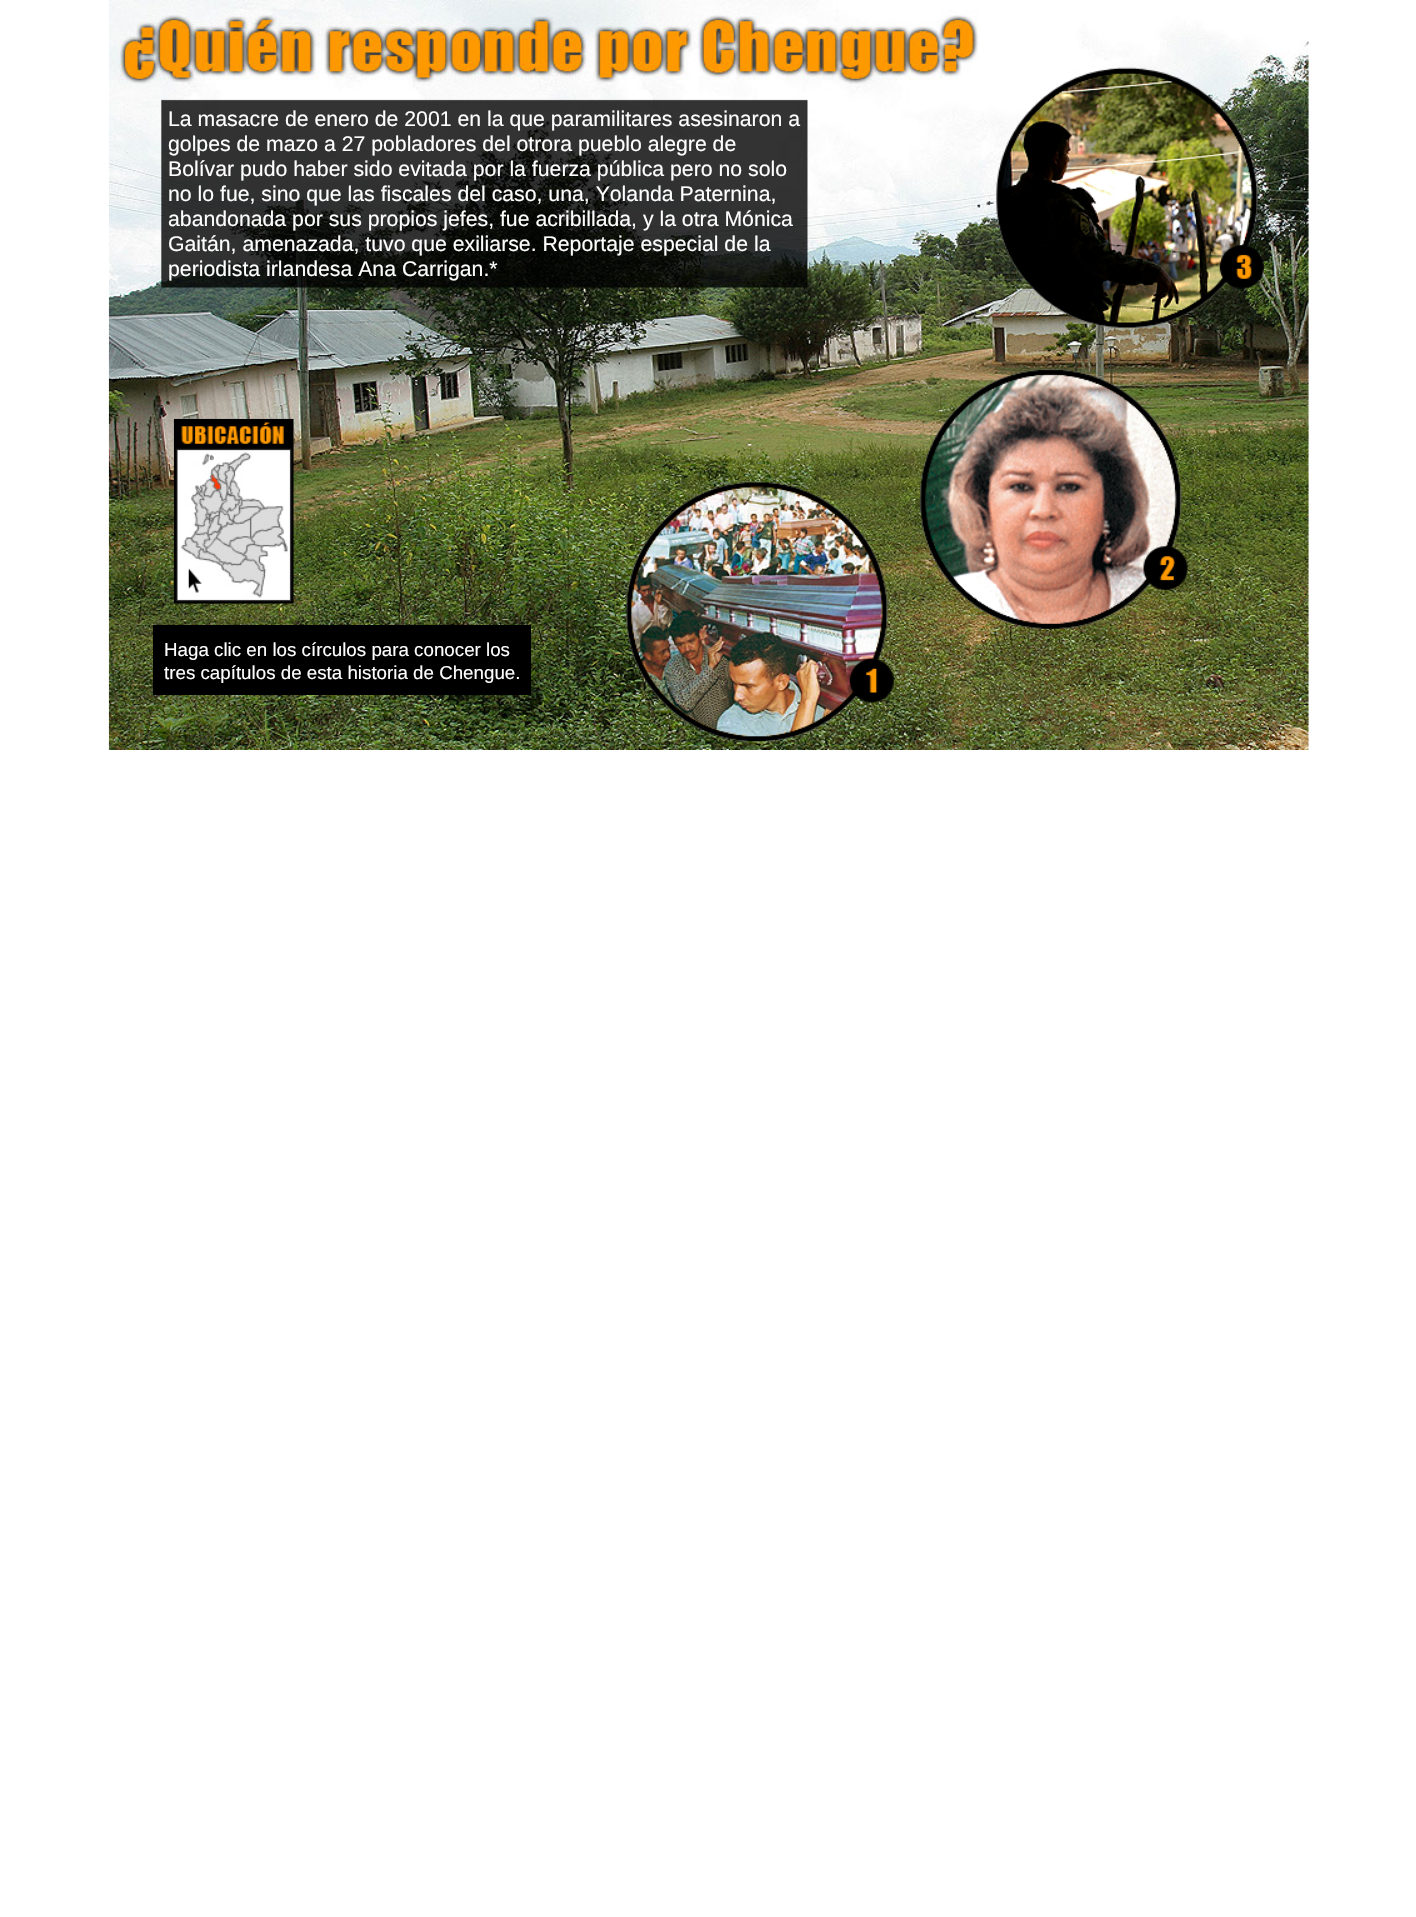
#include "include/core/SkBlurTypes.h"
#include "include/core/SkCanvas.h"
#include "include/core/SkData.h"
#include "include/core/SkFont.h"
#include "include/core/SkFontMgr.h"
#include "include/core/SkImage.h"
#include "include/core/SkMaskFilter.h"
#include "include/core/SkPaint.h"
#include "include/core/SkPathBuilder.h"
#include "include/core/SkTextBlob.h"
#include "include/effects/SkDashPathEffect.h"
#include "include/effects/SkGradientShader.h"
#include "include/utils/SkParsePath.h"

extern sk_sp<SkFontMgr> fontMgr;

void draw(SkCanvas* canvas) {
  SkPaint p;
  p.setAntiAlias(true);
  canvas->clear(SK_ColorWHITE);
  canvas->drawImageRect(SkImages::DeferredFromEncodedData(SkData::MakeFromFileName("images/1.png")), SkRect::MakeLTRB(108, 0, 1309, 750), SkSamplingOptions());
  canvas->drawImageRect(SkImages::DeferredFromEncodedData(SkData::MakeFromFileName("images/2.png")), SkRect::MakeLTRB(996, 67, 1264, 328), SkSamplingOptions());
  canvas->drawImageRect(SkImages::DeferredFromEncodedData(SkData::MakeFromFileName("images/3.png")), SkRect::MakeLTRB(173, 418, 294, 604), SkSamplingOptions());
  canvas->drawImageRect(SkImages::DeferredFromEncodedData(SkData::MakeFromFileName("images/4.png")), SkRect::MakeLTRB(626, 481, 894, 742), SkSamplingOptions());
  canvas->drawImageRect(SkImages::DeferredFromEncodedData(SkData::MakeFromFileName("images/5.png")), SkRect::MakeLTRB(919, 368, 1188, 629), SkSamplingOptions());
  p.setColor(SK_ColorBLACK);
  canvas->drawRect(SkRect::MakeLTRB(153, 625, 531, 695), p);
  SkFont font1(fontMgr->matchFamilyStyle("Liberation Sans", SkFontStyle::Normal()), 21.25f);
  font1.setSubpixel(true);
  p.setColor(SK_ColorWHITE);
  canvas->drawString("La masacre de enero de 2001 en la que paramilitares asesinaron a", 168, 126, font1, p);
  canvas->drawString("golpes de mazo a 27 pobladores del otrora pueblo alegre de", 168, 151, font1, p);
  canvas->drawString("Bolívar pudo haber sido evitada por la fuerza pública pero no solo", 168, 176, font1, p);
  canvas->drawString("no lo fue, sino que las fiscales del caso, una, Yolanda Paternina,", 168, 201, font1, p);
  canvas->drawString("abandonada por sus propios jefes, fue acribillada, y la otra Mónica", 168, 226, font1, p);
  canvas->drawString("Gaitán, amenazada, tuvo que exiliarse. Reportaje especial de la", 168, 251, font1, p);
  canvas->drawString("periodista irlandesa Ana Carrigan.*", 168, 276, font1, p);
  SkFont font2(fontMgr->matchFamilyStyle("Liberation Sans", SkFontStyle::Normal()), 18.75f);
  font2.setSubpixel(true);
  canvas->drawString("Haga clic en los círculos para conocer los", 164, 656, font2, p);
  canvas->drawString("tres capítulos de esta historia de Chengue.", 164, 679, font2, p);
}
